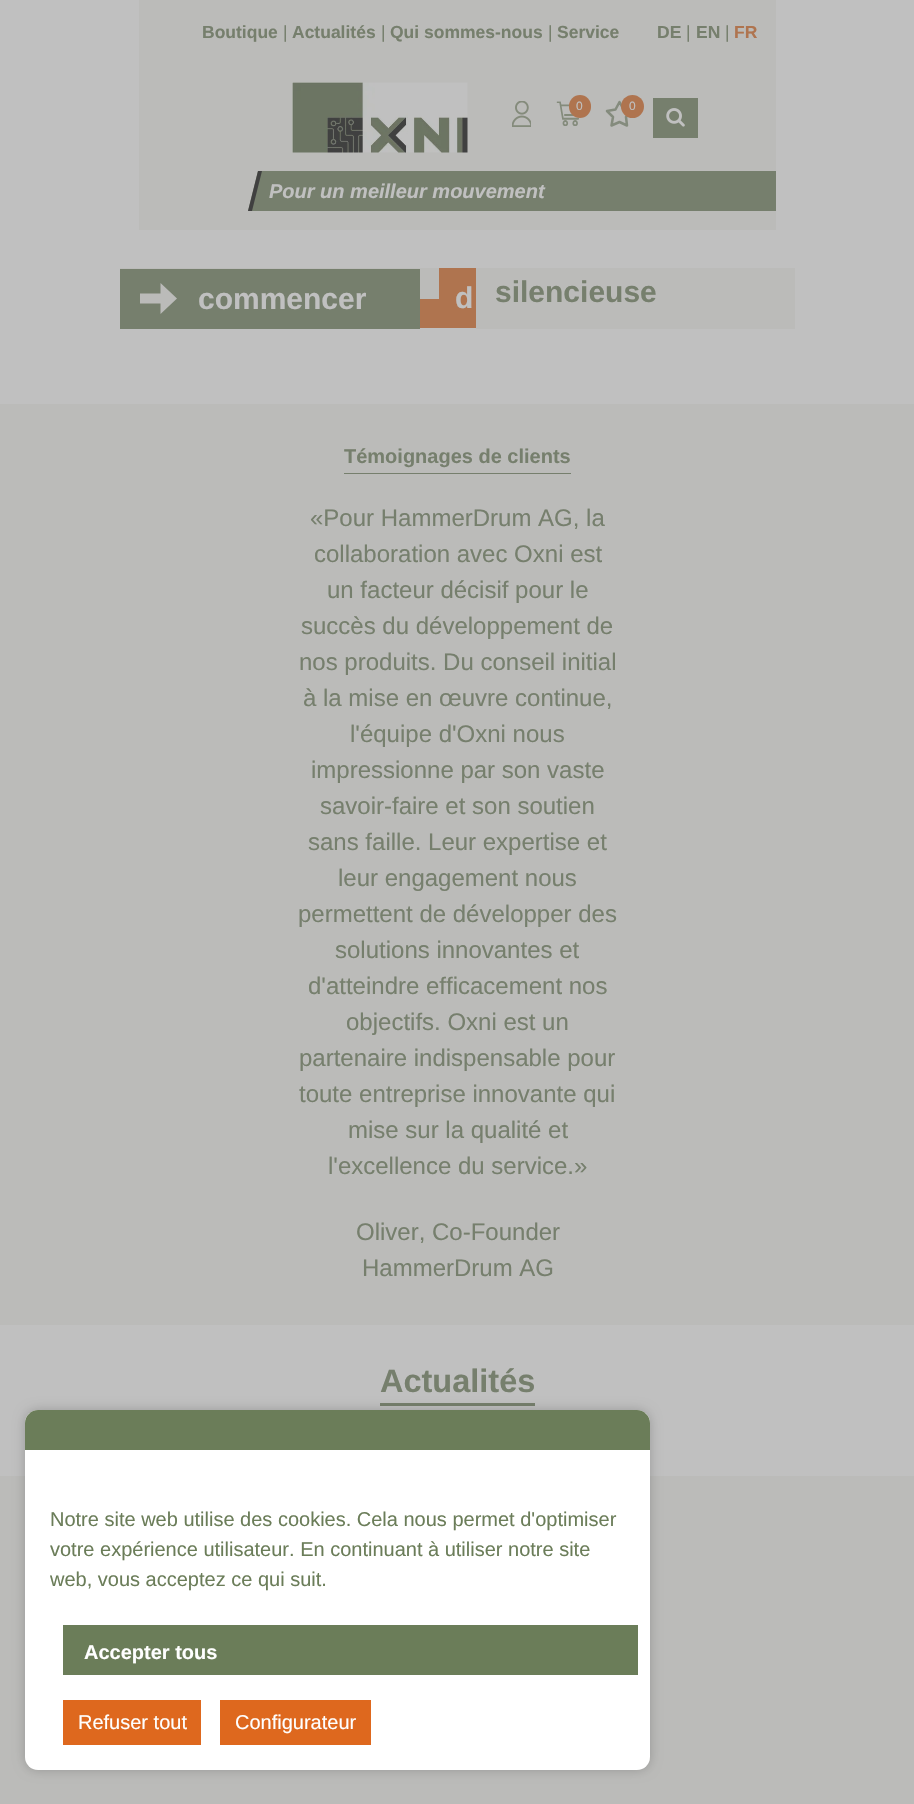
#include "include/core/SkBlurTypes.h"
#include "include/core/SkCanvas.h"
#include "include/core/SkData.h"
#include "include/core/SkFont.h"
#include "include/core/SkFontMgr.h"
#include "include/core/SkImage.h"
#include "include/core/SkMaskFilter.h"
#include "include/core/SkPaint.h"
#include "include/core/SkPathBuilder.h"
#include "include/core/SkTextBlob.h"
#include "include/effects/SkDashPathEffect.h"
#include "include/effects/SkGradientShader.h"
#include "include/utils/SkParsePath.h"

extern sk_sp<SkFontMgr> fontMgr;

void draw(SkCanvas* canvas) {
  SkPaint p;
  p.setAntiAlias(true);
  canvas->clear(SkColorSetRGB(192, 192, 192));
  p.setColor(SkColorSetRGB(187, 187, 185));
  canvas->drawRect(SkRect::MakeLTRB(139, 0, 776, 230), p);
  canvas->drawImageRect(SkImages::DeferredFromEncodedData(SkData::MakeFromFileName("images/1.png")), SkRect::MakeLTRB(292, 82, 468, 153), SkSamplingOptions());
  canvas->drawImageRect(SkImages::DeferredFromEncodedData(SkData::MakeFromFileName("images/2.png")), SkRect::MakeLTRB(512, 101, 531, 127), SkSamplingOptions());
  canvas->drawImageRect(SkImages::DeferredFromEncodedData(SkData::MakeFromFileName("images/3.png")), SkRect::MakeLTRB(556, 101, 579, 126), SkSamplingOptions());
  p.setColor(SkColorSetRGB(175, 116, 79));
  canvas->drawRoundRect(SkRect::MakeLTRB(569, 95, 591, 118), 11, 11, p);
  p.setStyle(SkPaint::kStroke_Style);
  p.setStrokeWidth(2.5f);
  p.setStrokeJoin(SkPaint::kRound_Join);
  p.setColor(SkColorSetRGB(132, 139, 125));
  canvas->drawPath(SkPathBuilder().moveTo(619.5f, 102).lineTo(623.5f, 109.5f).lineTo(632, 111).lineTo(626, 117).lineTo(627, 125.5f).lineTo(619.5f, 122).lineTo(611.5f, 125.5f).lineTo(613, 117).lineTo(607, 111).lineTo(615.5f, 109.5f).close().detach(), p);
  p.setStyle(SkPaint::kFill_Style);
  p.setColor(SkColorSetRGB(175, 116, 79));
  canvas->drawCircle(632.5f, 106.5f, 11.5f, p);
  p.setColor(SkColorSetRGB(118, 127, 109));
  canvas->drawRect(SkRect::MakeLTRB(653, 98, 698, 138), p);
  canvas->drawImageRect(SkImages::DeferredFromEncodedData(SkData::MakeFromFileName("images/4.png")), SkRect::MakeLTRB(666, 108, 685, 127), SkSamplingOptions());
  canvas->save();
  canvas->clipRect(SkRect::MakeLTRB(139, 171, 776, 230));
  canvas->drawPath(SkPathBuilder().moveTo(258, 171).lineTo(800, 171).lineTo(790, 211).lineTo(248, 211).close().detach(), p);
  canvas->restore();
  p.setColor(SkColorSetRGB(64, 64, 64));
  canvas->drawPath(SkPathBuilder().moveTo(258, 171).lineTo(262, 171).lineTo(252, 211).lineTo(248, 211).close().detach(), p);
  p.setColor(SkColorSetRGB(175, 116, 79));
  canvas->drawRect(SkRect::MakeLTRB(420, 268, 476, 328), p);
  p.setColor(SkColorSetRGB(187, 187, 185));
  canvas->drawRect(SkRect::MakeLTRB(120, 268, 439, 299), p);
  p.setColor(SkColorSetRGB(118, 127, 109));
  canvas->drawRect(SkRect::MakeLTRB(120, 269, 420, 329), p);
  p.setColor(SkColorSetRGB(187, 187, 185));
  canvas->drawPath(SkPathBuilder().moveTo(177, 298.5f).lineTo(160.5f, 283).lineTo(160.5f, 293.5f).lineTo(140, 293.5f).lineTo(140, 303.5f).lineTo(160.5f, 303.5f).lineTo(160.5f, 314).close().detach(), p);
  canvas->drawRect(SkRect::MakeLTRB(476, 268, 795, 329), p);
  canvas->drawRect(SkRect::MakeLTRB(0, 404, 914, 1325), p);
  p.setColor(SkColorSetRGB(118, 127, 109));
  canvas->drawRect(SkRect::MakeLTRB(344, 473, 571, 474), p);
  canvas->drawRect(SkRect::MakeLTRB(380, 1403, 535, 1406), p);
  p.setColor(SkColorSetRGB(187, 187, 185));
  canvas->drawRect(SkRect::MakeLTRB(0, 1476, 914, 1804), p);
  p.setColor(SkColorSetARGB(51, 0, 0, 0));
  p.setMaskFilter(SkMaskFilter::MakeBlur(kNormal_SkBlurStyle, 6));
  canvas->drawRoundRect(SkRect::MakeLTRB(25, 1410, 650, 1770), 13, 13, p);
  p.setMaskFilter(nullptr);
  p.setColor(SK_ColorWHITE);
  canvas->drawRoundRect(SkRect::MakeLTRB(25, 1410, 650, 1770), 13, 13, p);
  p.setColor(SkColorSetRGB(107, 125, 89));
  canvas->drawPath(SkPathBuilder().moveTo(38, 1410).lineTo(637, 1410).cubicTo(644, 1410, 650, 1416, 650, 1423).lineTo(650, 1450).lineTo(25, 1450).lineTo(25, 1423).cubicTo(25, 1416, 31, 1410, 38, 1410).close().detach(), p);
  canvas->drawRect(SkRect::MakeLTRB(63, 1625, 638, 1675), p);
  p.setColor(SkColorSetRGB(222, 104, 30));
  canvas->drawRect(SkRect::MakeLTRB(63, 1700, 201, 1745), p);
  canvas->drawRect(SkRect::MakeLTRB(220, 1700, 371, 1745), p);
  SkFont font1(fontMgr->matchFamilyStyle("Liberation Sans", SkFontStyle::Bold()), 17.5f);
  font1.setSubpixel(true);
  p.setColor(SkColorSetRGB(118, 127, 109));
  canvas->drawString("Boutique", 202, 38, font1, p);
  SkFont font2(fontMgr->matchFamilyStyle("Liberation Sans", SkFontStyle::Normal()), 17.5f);
  font2.setSubpixel(true);
  canvas->drawString("|", 283, 38, font2, p);
  canvas->drawString("Actualités", 292, 38, font1, p);
  canvas->drawString("|", 381, 38, font2, p);
  canvas->drawString("Qui sommes-nous", 390, 38, font1, p);
  canvas->drawString("|", 548, 38, font2, p);
  canvas->drawString("Service", 557, 38, font1, p);
  canvas->drawString("DE", 657, 38, font1, p);
  canvas->drawString("|", 686, 38, font2, p);
  canvas->drawString("EN", 696, 38, font1, p);
  canvas->drawString("|", 725, 38, font2, p);
  p.setColor(SkColorSetRGB(175, 116, 79));
  canvas->drawString("FR", 734, 38, font1, p);
  SkFont font3(fontMgr->matchFamilyStyle("Liberation Sans", SkFontStyle::Normal()), 12);
  font3.setSubpixel(true);
  p.setColor(SkColorSetRGB(192, 192, 192));
  canvas->drawString("0", 576, 110, font3, p);
  canvas->drawString("0", 629, 110, font3, p);
  SkFont font4(fontMgr->matchFamilyStyle("Liberation Sans", SkFontStyle::BoldItalic()), 20);
  font4.setSubpixel(true);
  canvas->drawString("Pour un meilleur mouvement", 269, 198, font4, p);
  SkFont font5(fontMgr->matchFamilyStyle("Liberation Sans", SkFontStyle::Bold()), 30);
  font5.setSubpixel(true);
  canvas->drawString("commencer", 198, 309, font5, p);
  canvas->drawString("d", 455, 308, font5, p);
  p.setColor(SkColorSetRGB(118, 127, 109));
  canvas->drawString("silencieuse", 495, 302, font5, p);
  SkFont font6(fontMgr->matchFamilyStyle("Liberation Sans", SkFontStyle::Bold()), 20);
  font6.setSubpixel(true);
  canvas->drawString("Témoignages de clients", 344, 463, font6, p);
  SkFont font7(fontMgr->matchFamilyStyle("Liberation Sans", SkFontStyle::Normal()), 24);
  font7.setSubpixel(true);
  canvas->drawString("«Pour HammerDrum AG, la", 310, 526, font7, p);
  canvas->drawString("collaboration avec Oxni est", 314, 562, font7, p);
  canvas->drawString("un facteur décisif pour le", 327, 598, font7, p);
  canvas->drawString("succès du développement de", 301, 634, font7, p);
  canvas->drawString("nos produits. Du conseil initial", 299, 670, font7, p);
  canvas->drawString("à la mise en œuvre continue,", 303, 706, font7, p);
  canvas->drawString("l'équipe d'Oxni nous", 350, 742, font7, p);
  canvas->drawString("impressionne par son vaste", 311, 778, font7, p);
  canvas->drawString("savoir-faire et son soutien", 320, 814, font7, p);
  canvas->drawString("sans faille. Leur expertise et", 308, 850, font7, p);
  canvas->drawString("leur engagement nous", 338, 886, font7, p);
  canvas->drawString("permettent de développer des", 298, 922, font7, p);
  canvas->drawString("solutions innovantes et", 335, 958, font7, p);
  canvas->drawString("d'atteindre efficacement nos", 308, 994, font7, p);
  canvas->drawString("objectifs. Oxni est un", 346, 1030, font7, p);
  canvas->drawString("partenaire indispensable pour", 299, 1066, font7, p);
  canvas->drawString("toute entreprise innovante qui", 299, 1102, font7, p);
  canvas->drawString("mise sur la qualité et", 348, 1138, font7, p);
  canvas->drawString("l'excellence du service.»", 328, 1174, font7, p);
  canvas->drawString("Oliver, Co-Founder", 356, 1240, font7, p);
  canvas->drawString("HammerDrum AG", 362, 1276, font7, p);
  SkFont font8(fontMgr->matchFamilyStyle("Liberation Sans", SkFontStyle::Bold()), 32.5f);
  font8.setSubpixel(true);
  canvas->drawString("Actualités", 380, 1392, font8, p);
  SkFont font9(fontMgr->matchFamilyStyle("Liberation Sans", SkFontStyle::Normal()), 20);
  font9.setSubpixel(true);
  p.setColor(SkColorSetRGB(107, 125, 89));
  canvas->drawString("Notre site web utilise des cookies. Cela nous permet d'optimiser", 50, 1526, font9, p);
  canvas->drawString("votre expérience utilisateur. En continuant à utiliser notre site", 50, 1556, font9, p);
  canvas->drawString("web, vous acceptez ce qui suit.", 50, 1586, font9, p);
  p.setColor(SK_ColorWHITE);
  canvas->drawString("Accepter tous", 84, 1659, font6, p);
  canvas->drawString("Refuser tout", 78, 1729, font9, p);
  canvas->drawString("Configurateur", 235, 1729, font9, p);
}
